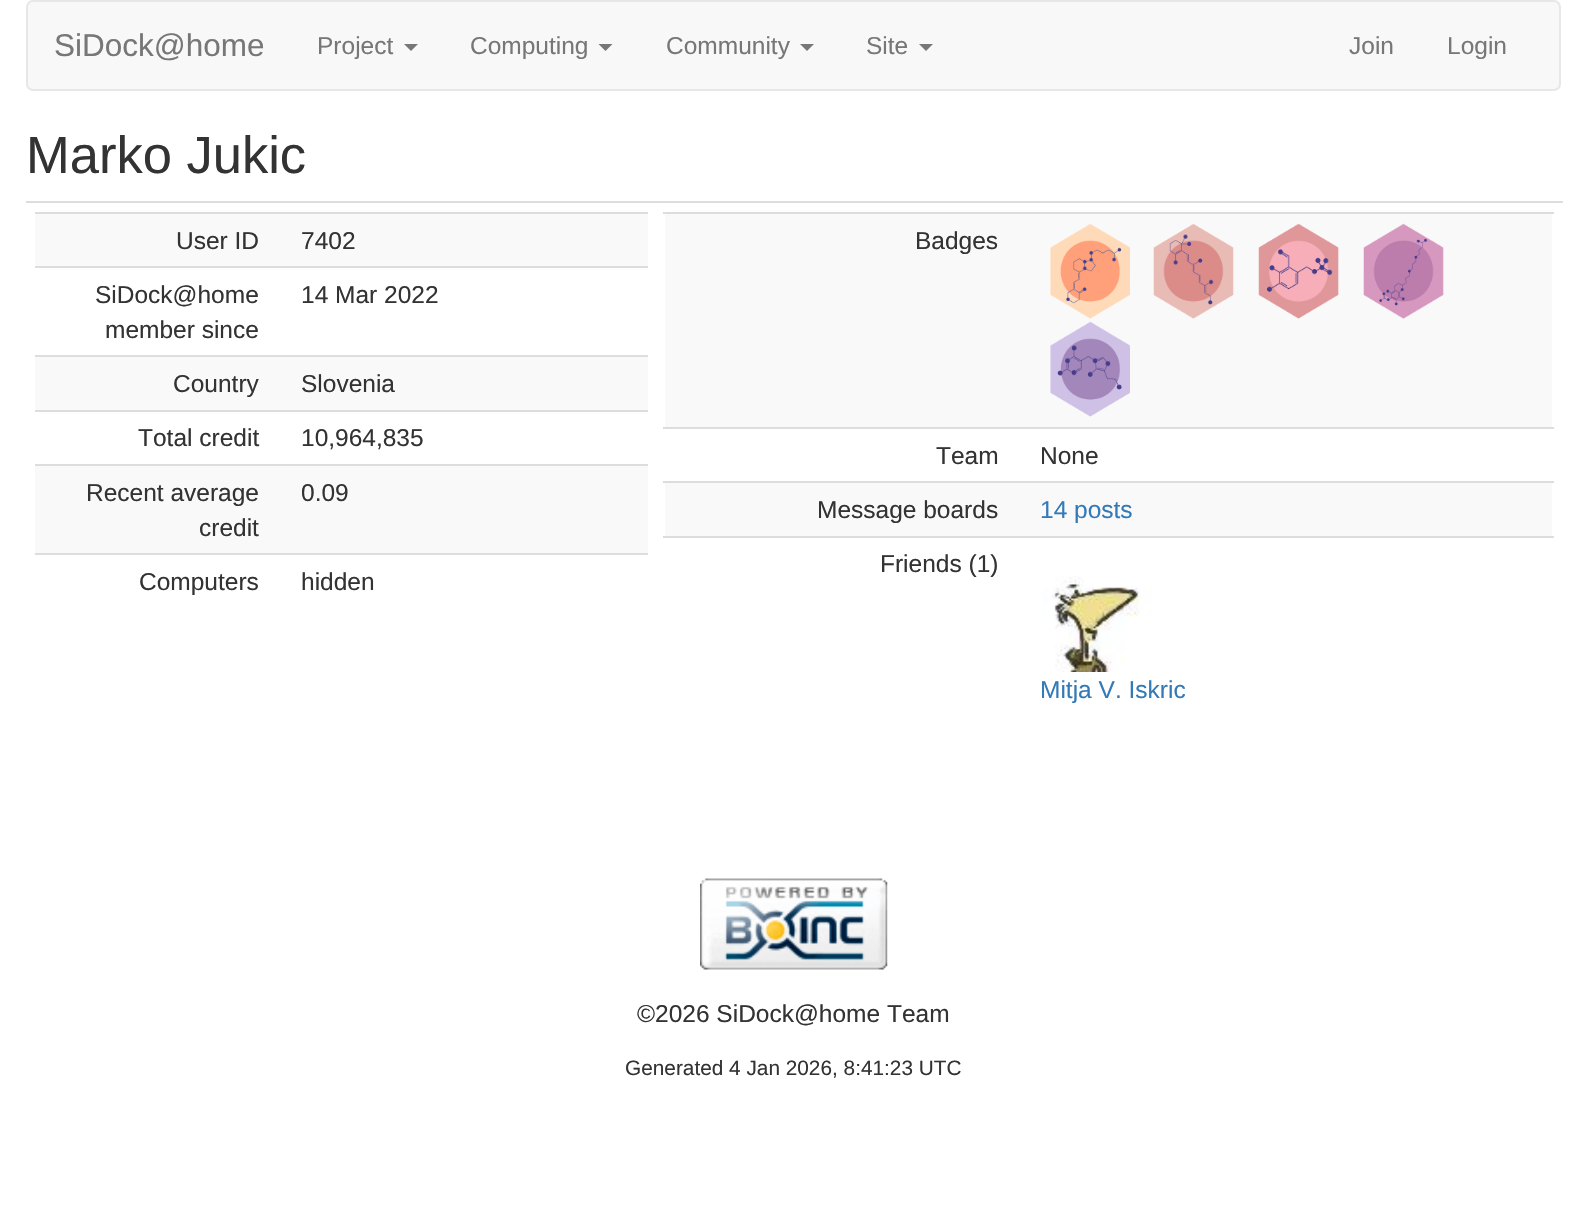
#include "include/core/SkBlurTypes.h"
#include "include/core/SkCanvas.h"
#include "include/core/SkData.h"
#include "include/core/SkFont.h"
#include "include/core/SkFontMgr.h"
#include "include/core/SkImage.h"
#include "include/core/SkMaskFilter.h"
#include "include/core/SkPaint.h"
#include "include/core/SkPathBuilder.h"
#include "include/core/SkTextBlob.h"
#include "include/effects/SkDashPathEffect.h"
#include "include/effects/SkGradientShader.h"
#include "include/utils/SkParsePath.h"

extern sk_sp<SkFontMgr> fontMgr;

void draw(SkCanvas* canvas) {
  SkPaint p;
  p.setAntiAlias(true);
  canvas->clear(SK_ColorWHITE);
  p.setColor(SkColorSetRGB(248, 248, 248));
  canvas->drawRoundRect(SkRect::MakeLTRB(27, 1, 1560, 90), 6, 6, p);
  p.setStyle(SkPaint::kStroke_Style);
  p.setStrokeWidth(2);
  p.setColor(SkColorSetRGB(231, 231, 231));
  canvas->drawRoundRect(SkRect::MakeLTRB(27, 1, 1560, 90), 6, 6, p);
  p.setStyle(SkPaint::kFill_Style);
  p.setColor(SkColorSetRGB(119, 119, 119));
  canvas->drawPath(SkPathBuilder().moveTo(404, 44).lineTo(418, 44).lineTo(411, 51).close().detach(), p);
  canvas->drawPath(SkPathBuilder().moveTo(598.5f, 44).lineTo(612.5f, 44).lineTo(605.5f, 51).close().detach(), p);
  canvas->drawPath(SkPathBuilder().moveTo(800, 44).lineTo(814, 44).lineTo(807, 51).close().detach(), p);
  canvas->drawPath(SkPathBuilder().moveTo(919, 44).lineTo(933, 44).lineTo(926, 51).close().detach(), p);
  p.setColor(SkColorSetRGB(249, 249, 249));
  canvas->drawRect(SkRect::MakeLTRB(35, 214, 648, 266), p);
  p.setColor(SkColorSetRGB(221, 221, 221));
  canvas->drawRect(SkRect::MakeLTRB(35, 212, 648, 214), p);
  canvas->drawRect(SkRect::MakeLTRB(35, 266, 648, 268), p);
  p.setColor(SkColorSetRGB(249, 249, 249));
  canvas->drawRect(SkRect::MakeLTRB(35, 357, 648, 410), p);
  p.setColor(SkColorSetRGB(221, 221, 221));
  canvas->drawRect(SkRect::MakeLTRB(35, 355, 648, 357), p);
  canvas->drawRect(SkRect::MakeLTRB(35, 410, 648, 412), p);
  p.setColor(SkColorSetRGB(249, 249, 249));
  canvas->drawRect(SkRect::MakeLTRB(35, 466, 648, 553), p);
  p.setColor(SkColorSetRGB(221, 221, 221));
  canvas->drawRect(SkRect::MakeLTRB(35, 464, 648, 466), p);
  canvas->drawRect(SkRect::MakeLTRB(35, 553, 648, 555), p);
  canvas->drawRect(SkRect::MakeLTRB(26, 201, 1563, 203), p);
  p.setColor(SkColorSetRGB(249, 249, 249));
  canvas->drawRect(SkRect::MakeLTRB(665, 214, 1552, 427), p);
  p.setColor(SkColorSetRGB(221, 221, 221));
  canvas->drawRect(SkRect::MakeLTRB(663, 212, 1554, 214), p);
  canvas->drawImageRect(SkImages::DeferredFromEncodedData(SkData::MakeFromFileName("images/1.png")), SkRect::MakeLTRB(1050, 223, 1130, 319), SkSamplingOptions());
  canvas->drawImageRect(SkImages::DeferredFromEncodedData(SkData::MakeFromFileName("images/2.png")), SkRect::MakeLTRB(1153, 223, 1234, 319), SkSamplingOptions());
  canvas->drawImageRect(SkImages::DeferredFromEncodedData(SkData::MakeFromFileName("images/3.png")), SkRect::MakeLTRB(1258, 223, 1339, 319), SkSamplingOptions());
  canvas->drawImageRect(SkImages::DeferredFromEncodedData(SkData::MakeFromFileName("images/4.png")), SkRect::MakeLTRB(1363, 223, 1444, 319), SkSamplingOptions());
  canvas->drawImageRect(SkImages::DeferredFromEncodedData(SkData::MakeFromFileName("images/5.png")), SkRect::MakeLTRB(1050, 321, 1130, 417), SkSamplingOptions());
  canvas->drawRect(SkRect::MakeLTRB(663, 427, 1554, 429), p);
  p.setColor(SkColorSetRGB(249, 249, 249));
  canvas->drawRect(SkRect::MakeLTRB(665, 483, 1552, 536), p);
  p.setColor(SkColorSetRGB(221, 221, 221));
  canvas->drawRect(SkRect::MakeLTRB(663, 481, 1554, 483), p);
  canvas->drawRect(SkRect::MakeLTRB(663, 536, 1554, 538), p);
  canvas->drawImageRect(SkImages::DeferredFromEncodedData(SkData::MakeFromFileName("images/6.png")), SkRect::MakeLTRB(1042, 576, 1153, 672), SkSamplingOptions());
  canvas->drawImageRect(SkImages::DeferredFromEncodedData(SkData::MakeFromFileName("images/7.png")), SkRect::MakeLTRB(700, 878, 888, 970), SkSamplingOptions());
  SkFont font1(fontMgr->matchFamilyStyle("Liberation Sans", SkFontStyle::Normal()), 31.5f);
  font1.setSubpixel(true);
  p.setColor(SkColorSetRGB(119, 119, 119));
  canvas->drawString("SiDock@home", 54, 56, font1, p);
  SkFont font2(fontMgr->matchFamilyStyle("Liberation Sans", SkFontStyle::Normal()), 24.5f);
  font2.setSubpixel(true);
  canvas->drawString("Project", 317, 54, font2, p);
  canvas->drawString("Computing", 470, 54, font2, p);
  canvas->drawString("Community", 666, 54, font2, p);
  canvas->drawString("Site", 866, 54, font2, p);
  canvas->drawString("Join", 1349, 54, font2, p);
  canvas->drawString("Login", 1447, 54, font2, p);
  SkFont font3(fontMgr->matchFamilyStyle("Liberation Sans", SkFontStyle::Normal()), 52.5f);
  font3.setSubpixel(true);
  p.setColor(SkColorSetRGB(51, 51, 51));
  canvas->drawString("Marko Jukic", 26, 173, font3, p);
  canvas->drawString("User ID", 176, 249, font2, p);
  canvas->drawString("7402", 301, 249, font2, p);
  canvas->drawString("SiDock@home", 95, 303, font2, p);
  canvas->drawString("member since", 105, 338, font2, p);
  canvas->drawString("14 Mar 2022", 301, 303, font2, p);
  canvas->drawString("Country", 173, 392, font2, p);
  canvas->drawString("Slovenia", 301, 392, font2, p);
  canvas->drawString("Total credit", 138, 446, font2, p);
  canvas->drawString("10,964,835", 301, 446, font2, p);
  canvas->drawString("Recent average", 86, 501, font2, p);
  canvas->drawString("credit", 199, 536, font2, p);
  canvas->drawString("0.09", 301, 501, font2, p);
  canvas->drawString("Computers", 139, 590, font2, p);
  canvas->drawString("hidden", 301, 590, font2, p);
  canvas->drawString("Badges", 915, 249, font2, p);
  canvas->drawString("Team", 936, 464, font2, p);
  canvas->drawString("None", 1040, 464, font2, p);
  canvas->drawString("Message boards", 817, 518, font2, p);
  p.setColor(SkColorSetRGB(51, 122, 183));
  canvas->drawString("14 posts", 1040, 518, font2, p);
  p.setColor(SkColorSetRGB(51, 51, 51));
  canvas->drawString("Friends (1)", 880, 572, font2, p);
  p.setColor(SkColorSetRGB(51, 122, 183));
  canvas->drawString("Mitja V. Iskric", 1040, 698, font2, p);
  p.setColor(SkColorSetRGB(51, 51, 51));
  canvas->drawString("©2026 SiDock@home Team", 637, 1022, font2, p);
  SkFont font4(fontMgr->matchFamilyStyle("Liberation Sans", SkFontStyle::Normal()), 20.8f);
  font4.setSubpixel(true);
  canvas->drawString("Generated 4 Jan 2026, 8:41:23 UTC", 625, 1075, font4, p);
}
